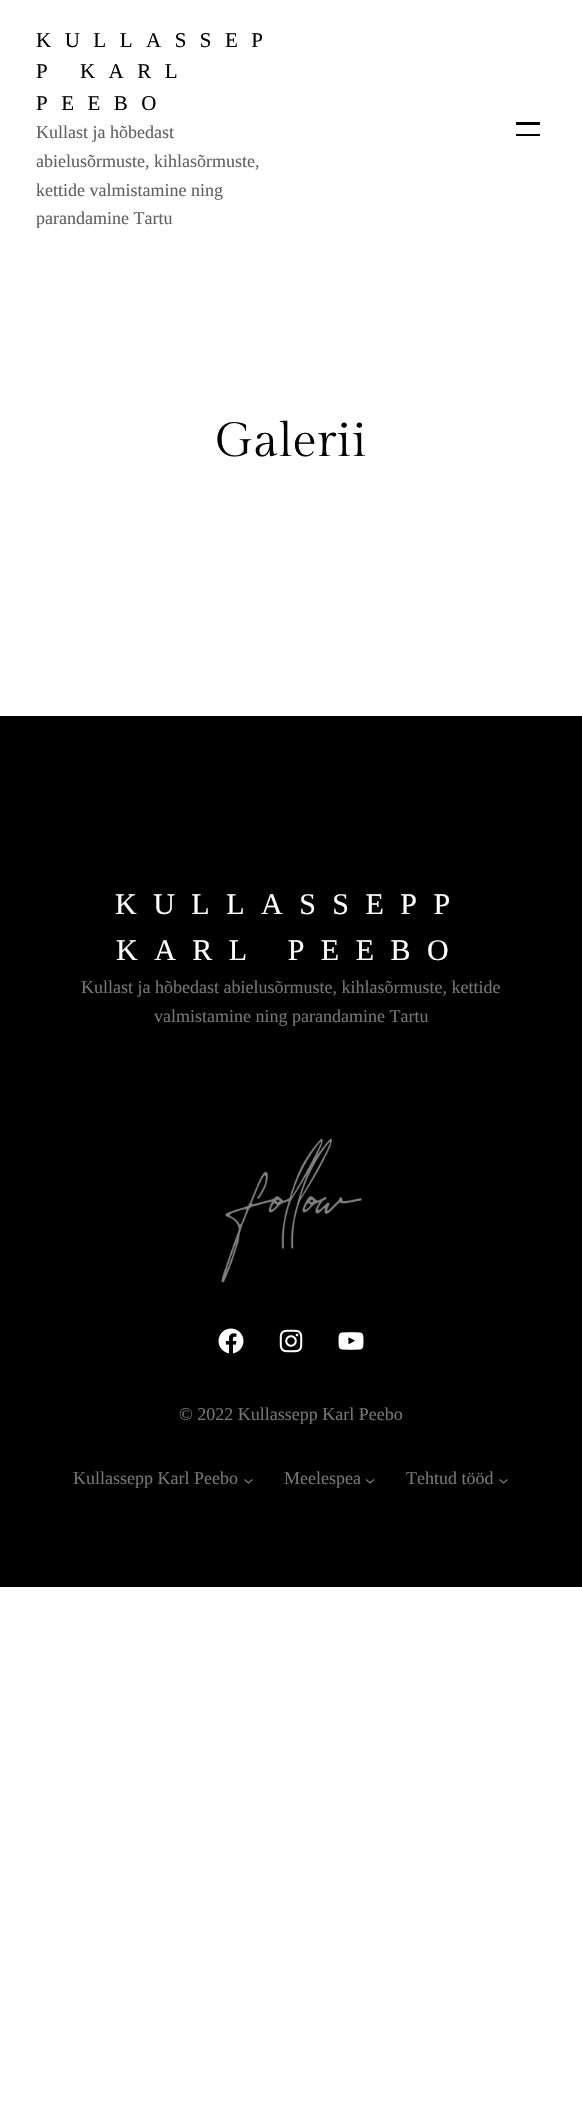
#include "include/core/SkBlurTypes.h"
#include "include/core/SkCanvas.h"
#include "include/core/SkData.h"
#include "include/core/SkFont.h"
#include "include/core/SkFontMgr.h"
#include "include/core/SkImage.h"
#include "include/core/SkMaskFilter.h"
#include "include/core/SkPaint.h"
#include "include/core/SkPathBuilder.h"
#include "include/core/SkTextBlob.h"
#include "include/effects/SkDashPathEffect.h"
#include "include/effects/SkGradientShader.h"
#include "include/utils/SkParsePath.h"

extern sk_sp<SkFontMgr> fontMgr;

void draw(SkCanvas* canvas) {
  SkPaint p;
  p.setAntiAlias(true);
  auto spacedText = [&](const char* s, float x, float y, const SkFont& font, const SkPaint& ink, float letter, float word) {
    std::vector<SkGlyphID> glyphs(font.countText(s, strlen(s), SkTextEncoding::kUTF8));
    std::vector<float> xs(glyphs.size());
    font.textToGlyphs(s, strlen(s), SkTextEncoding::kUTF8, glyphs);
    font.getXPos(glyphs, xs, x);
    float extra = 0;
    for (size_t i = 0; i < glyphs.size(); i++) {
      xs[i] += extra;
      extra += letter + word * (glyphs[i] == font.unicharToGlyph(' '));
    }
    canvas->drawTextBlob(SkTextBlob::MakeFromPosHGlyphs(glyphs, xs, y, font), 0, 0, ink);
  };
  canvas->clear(SK_ColorWHITE);
  p.setColor(SK_ColorBLACK);
  canvas->drawRect(SkRect::MakeLTRB(516, 122, 540, 125), p);
  canvas->drawRect(SkRect::MakeLTRB(516, 134, 540, 136), p);
  canvas->drawRect(SkRect::MakeLTRB(0, 716, 582, 1587), p);
  canvas->drawImageRect(SkImages::DeferredFromEncodedData(SkData::MakeFromFileName("images/1.png")), SkRect::MakeLTRB(221, 1138, 362, 1283), SkSamplingOptions());
  canvas->drawImageRect(SkImages::DeferredFromEncodedData(SkData::MakeFromFileName("images/2.png")), SkRect::MakeLTRB(218, 1328, 244, 1354), SkSamplingOptions());
  canvas->drawImageRect(SkImages::DeferredFromEncodedData(SkData::MakeFromFileName("images/3.png")), SkRect::MakeLTRB(279, 1329, 303, 1353), SkSamplingOptions());
  canvas->drawImageRect(SkImages::DeferredFromEncodedData(SkData::MakeFromFileName("images/4.png")), SkRect::MakeLTRB(338, 1332, 364, 1350), SkSamplingOptions());
  p.setStyle(SkPaint::kStroke_Style);
  p.setStrokeWidth(1.3f);
  p.setColor(SkColorSetRGB(118, 118, 118));
  canvas->drawPath(SkPathBuilder().moveTo(244.5f, 1479.5f).lineTo(248.5f, 1483).lineTo(252.5f, 1479.5f).detach(), p);
  canvas->drawPath(SkPathBuilder().moveTo(366, 1479.5f).lineTo(370, 1483).lineTo(374, 1479.5f).detach(), p);
  canvas->drawPath(SkPathBuilder().moveTo(499.5f, 1479.5f).lineTo(503.5f, 1483).lineTo(507.5f, 1479.5f).detach(), p);
  SkFont font1(fontMgr->matchFamilyStyle("Liberation Serif", SkFontStyle::Normal()), 21);
  font1.setSubpixel(true);
  p.setStyle(SkPaint::kFill_Style);
  p.setColor(SkColorSetRGB(2, 2, 2));
  spacedText("KULLASSEP", 36, 47, font1, p, 13.5f, 0);
  spacedText("P KARL", 36, 78, font1, p, 13.5f, 0);
  spacedText("PEEBO", 36, 110, font1, p, 13.5f, 0);
  SkFont font2(fontMgr->matchFamilyStyle("Liberation Serif", SkFontStyle::Normal()), 18);
  font2.setSubpixel(true);
  p.setColor(SkColorSetRGB(96, 96, 96));
  canvas->drawString("Kullast ja hõbedast", 36, 138, font2, p);
  canvas->drawString("abielusõrmuste, kihlasõrmuste,", 36, 167, font2, p);
  canvas->drawString("kettide valmistamine ning", 36, 196, font2, p);
  canvas->drawString("parandamine Tartu", 36, 224, font2, p);
  SkFont font3(fontMgr->matchFamilyStyle("Gilda Display", SkFontStyle::Normal()), 48);
  font3.setSubpixel(true);
  p.setColor(SkColorSetRGB(2, 2, 2));
  canvas->drawString("Galerii", 215, 456, font3, p);
  SkFont font4(fontMgr->matchFamilyStyle("Liberation Serif", SkFontStyle::Normal()), 30);
  font4.setSubpixel(true);
  p.setColor(SK_ColorWHITE);
  spacedText("KULLASSEPP", 115, 914, font4, p, 16.5f, 0);
  spacedText("KARL PEEBO", 116, 960, font4, p, 16.5f, 0);
  p.setColor(SkColorSetRGB(118, 118, 118));
  canvas->drawString("Kullast ja hõbedast abielusõrmuste, kihlasõrmuste, kettide", 81, 993, font2, p);
  canvas->drawString("valmistamine ning parandamine Tartu", 154, 1022, font2, p);
  canvas->drawString("© 2022 Kullassepp Karl Peebo", 179, 1420, font2, p);
  canvas->drawString("Kullassepp Karl Peebo", 73, 1484, font2, p);
  canvas->drawString("Meelespea", 284, 1484, font2, p);
  canvas->drawString("Tehtud tööd", 406, 1484, font2, p);
}
